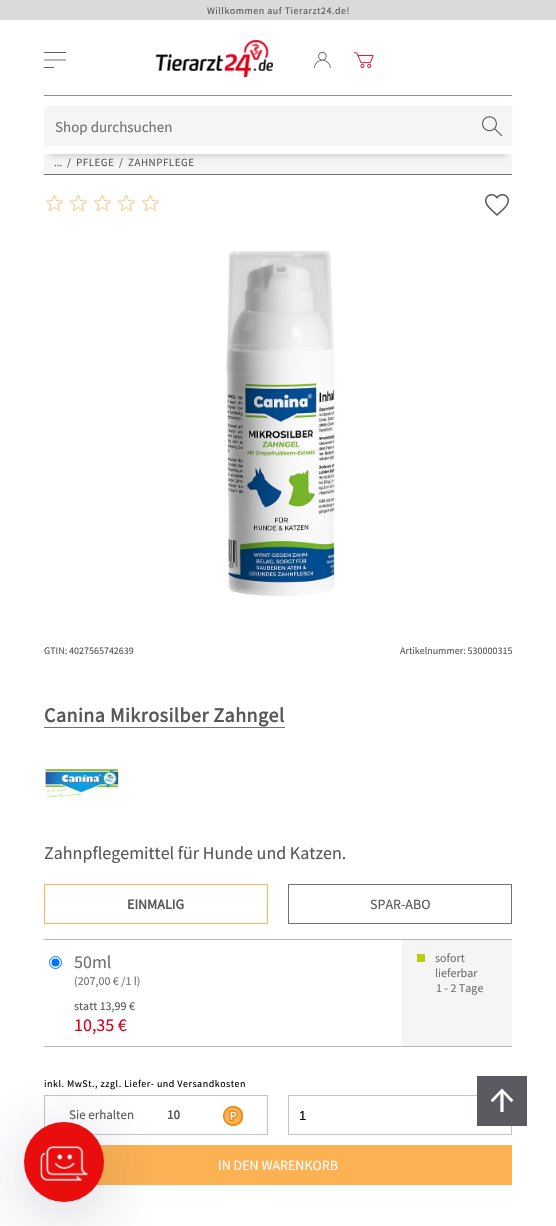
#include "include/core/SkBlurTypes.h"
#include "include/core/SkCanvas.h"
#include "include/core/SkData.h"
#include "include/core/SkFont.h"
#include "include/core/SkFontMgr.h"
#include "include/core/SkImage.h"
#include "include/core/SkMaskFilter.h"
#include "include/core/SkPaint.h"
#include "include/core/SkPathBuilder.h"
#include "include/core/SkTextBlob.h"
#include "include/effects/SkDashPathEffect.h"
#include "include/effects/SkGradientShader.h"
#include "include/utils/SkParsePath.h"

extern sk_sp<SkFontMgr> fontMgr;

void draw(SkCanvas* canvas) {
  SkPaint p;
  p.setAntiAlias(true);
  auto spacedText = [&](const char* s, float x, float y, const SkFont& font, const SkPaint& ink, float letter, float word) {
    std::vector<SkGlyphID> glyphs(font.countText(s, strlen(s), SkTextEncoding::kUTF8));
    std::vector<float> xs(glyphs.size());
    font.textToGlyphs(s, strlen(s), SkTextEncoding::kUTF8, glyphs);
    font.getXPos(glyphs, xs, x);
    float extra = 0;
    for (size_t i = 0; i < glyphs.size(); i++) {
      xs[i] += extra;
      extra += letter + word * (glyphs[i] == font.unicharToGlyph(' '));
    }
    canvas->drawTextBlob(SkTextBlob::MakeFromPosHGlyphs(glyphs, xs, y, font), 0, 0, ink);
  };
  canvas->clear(SK_ColorWHITE);
  p.setColor(SkColorSetRGB(218, 218, 218));
  canvas->drawRect(SkRect::MakeLTRB(0, 0, 556, 20), p);
  p.setColor(SkColorSetRGB(142, 142, 142));
  canvas->drawRect(SkRect::MakeLTRB(44, 95, 512, 96), p);
  canvas->drawImageRect(SkImages::DeferredFromEncodedData(SkData::MakeFromFileName("images/1.png")), SkRect::MakeLTRB(44, 52, 67, 68), SkSamplingOptions());
  canvas->drawImageRect(SkImages::DeferredFromEncodedData(SkData::MakeFromFileName("images/2.png")), SkRect::MakeLTRB(155, 40, 273, 77), SkSamplingOptions());
  canvas->drawImageRect(SkImages::DeferredFromEncodedData(SkData::MakeFromFileName("images/3.png")), SkRect::MakeLTRB(314, 52, 331, 68), SkSamplingOptions());
  canvas->drawImageRect(SkImages::DeferredFromEncodedData(SkData::MakeFromFileName("images/4.png")), SkRect::MakeLTRB(354, 52, 374, 68), SkSamplingOptions());
  p.setColor(SkColorSetRGB(245, 245, 245));
  canvas->drawRect(SkRect::MakeLTRB(44, 154, 512, 174), p);
  p.setColor(SkColorSetARGB(41, 0, 0, 0));
  p.setMaskFilter(SkMaskFilter::MakeBlur(kNormal_SkBlurStyle, 3));
  canvas->drawRect(SkRect::MakeLTRB(50, 110, 506, 156), p);
  p.setMaskFilter(nullptr);
  p.setColor(SK_ColorWHITE);
  canvas->drawRect(SkRect::MakeLTRB(45, 105, 511, 154), p);
  p.setColor(SkColorSetRGB(245, 245, 245));
  canvas->drawRect(SkRect::MakeLTRB(44, 106, 512, 146), p);
  canvas->drawImageRect(SkImages::DeferredFromEncodedData(SkData::MakeFromFileName("images/5.png")), SkRect::MakeLTRB(482, 116, 503, 137), SkSamplingOptions());
  p.setColor(SkColorSetRGB(112, 112, 112));
  canvas->drawRect(SkRect::MakeLTRB(44, 174, 512, 175), p);
  canvas->drawImageRect(SkImages::DeferredFromEncodedData(SkData::MakeFromFileName("images/6.png")), SkRect::MakeLTRB(46, 195, 63, 211), SkSamplingOptions());
  canvas->drawImageRect(SkImages::DeferredFromEncodedData(SkData::MakeFromFileName("images/6.png")), SkRect::MakeLTRB(70, 195, 87, 211), SkSamplingOptions());
  canvas->drawImageRect(SkImages::DeferredFromEncodedData(SkData::MakeFromFileName("images/6.png")), SkRect::MakeLTRB(94, 195, 111, 211), SkSamplingOptions());
  canvas->drawImageRect(SkImages::DeferredFromEncodedData(SkData::MakeFromFileName("images/6.png")), SkRect::MakeLTRB(118, 195, 135, 211), SkSamplingOptions());
  canvas->drawImageRect(SkImages::DeferredFromEncodedData(SkData::MakeFromFileName("images/6.png")), SkRect::MakeLTRB(142, 195, 159, 211), SkSamplingOptions());
  canvas->drawImageRect(SkImages::DeferredFromEncodedData(SkData::MakeFromFileName("images/7.png")), SkRect::MakeLTRB(485, 194, 509, 216), SkSamplingOptions());
  canvas->drawImageRect(SkImages::DeferredFromEncodedData(SkData::MakeFromFileName("images/8.png")), SkRect::MakeLTRB(226, 250, 337, 596), SkSamplingOptions());
  canvas->drawRect(SkRect::MakeLTRB(44, 727, 285, 728), p);
  canvas->drawImageRect(SkImages::DeferredFromEncodedData(SkData::MakeFromFileName("images/9.png")), SkRect::MakeLTRB(45, 768, 119, 799), SkSamplingOptions());
  p.setStyle(SkPaint::kStroke_Style);
  p.setStrokeWidth(1);
  p.setColor(SkColorSetRGB(252, 178, 83));
  canvas->drawRect(SkRect::MakeLTRB(44.5f, 884.5f, 267.5f, 923.5f), p);
  p.setColor(SkColorSetRGB(112, 112, 112));
  canvas->drawRect(SkRect::MakeLTRB(288.5f, 884.5f, 511.5f, 923.5f), p);
  p.setStyle(SkPaint::kFill_Style);
  p.setColor(SkColorSetRGB(183, 183, 183));
  canvas->drawRect(SkRect::MakeLTRB(44, 939, 512, 940), p);
  canvas->drawRect(SkRect::MakeLTRB(44, 1046, 512, 1047), p);
  p.setStyle(SkPaint::kStroke_Style);
  p.setColor(SkColorSetRGB(0, 117, 255));
  canvas->drawCircle(55.5f, 962.5f, 6, p);
  p.setStyle(SkPaint::kFill_Style);
  canvas->drawCircle(55.5f, 962.5f, 4, p);
  p.setColor(SkColorSetRGB(245, 245, 245));
  canvas->drawRect(SkRect::MakeLTRB(402, 940, 512, 1046), p);
  p.setColor(SkColorSetRGB(185, 206, 18));
  canvas->drawRect(SkRect::MakeLTRB(417, 954, 425, 962), p);
  p.setStyle(SkPaint::kStroke_Style);
  p.setColor(SkColorSetRGB(196, 196, 198));
  canvas->drawRect(SkRect::MakeLTRB(44.5f, 1095.5f, 267.5f, 1134.5f), p);
  canvas->drawImageRect(SkImages::DeferredFromEncodedData(SkData::MakeFromFileName("images/10.png")), SkRect::MakeLTRB(223, 1106, 243, 1126), SkSamplingOptions());
  canvas->drawRect(SkRect::MakeLTRB(288.5f, 1095.5f, 511.5f, 1134.5f), p);
  p.setStyle(SkPaint::kFill_Style);
  p.setColor(SkColorSetRGB(252, 178, 83));
  canvas->drawRect(SkRect::MakeLTRB(96, 1145, 512, 1185), p);
  p.setColor(SkColorSetRGB(89, 91, 96));
  canvas->drawRect(SkRect::MakeLTRB(477, 1076, 527, 1126), p);
  p.setColor(SkColorSetARGB(61, 62, 47, 89));
  p.setMaskFilter(SkMaskFilter::MakeBlur(kNormal_SkBlurStyle, 32));
  canvas->drawRoundRect(SkRect::MakeLTRB(24, 1134, 104, 1214), 40, 40, p);
  p.setMaskFilter(nullptr);
  p.setColor(SkColorSetRGB(234, 13, 13));
  canvas->drawCircle(64, 1162, 40, p);
  canvas->drawImageRect(SkImages::DeferredFromEncodedData(SkData::MakeFromFileName("images/11.png")), SkRect::MakeLTRB(40, 1146, 89, 1181), SkSamplingOptions());
  SkFont font1(fontMgr->matchFamilyStyle("Source Sans Pro", SkFontStyle::Normal()), 10);
  font1.setSubpixel(true);
  p.setColor(SkColorSetRGB(87, 87, 86));
  spacedText("Willkommen auf Tierarzt24.de!", 207, 14, font1, p, 0.5f, 0);
  SkFont font2(fontMgr->matchFamilyStyle("Source Sans Pro", SkFontStyle::Normal()), 15);
  font2.setSubpixel(true);
  p.setColor(SkColorSetRGB(112, 112, 112));
  canvas->drawString("Shop durchsuchen", 55, 132, font2, p);
  SkFont font3(fontMgr->matchFamilyStyle("Source Sans Pro", SkFontStyle::Normal()), 11);
  font3.setSubpixel(true);
  p.setColor(SkColorSetRGB(87, 87, 86));
  canvas->drawString("...", 54, 166, font3, p);
  canvas->drawString("/", 67, 166, font3, p);
  spacedText("PFLEGE", 76, 166, font3, p, 0.5f, 0);
  canvas->drawString("/", 119, 166, font3, p);
  spacedText("ZAHNPFLEGE", 128, 166, font3, p, 0.5f, 0);
  canvas->drawString("GTIN: 4027565742639", 44, 654, font1, p);
  canvas->drawString("Artikelnummer: 530000315", 400, 654, font1, p);
  SkFont font4(fontMgr->matchFamilyStyle("Source Sans Pro", SkFontStyle::Bold()), 20);
  font4.setSubpixel(true);
  spacedText("Canina Mikrosilber Zahngel", 44, 722, font4, p, 0.5f, 0);
  SkFont font5(fontMgr->matchFamilyStyle("Source Sans Pro", SkFontStyle::Normal()), 18);
  font5.setSubpixel(true);
  canvas->drawString("Zahnpflegemittel für Hunde und Katzen.", 44, 859, font5, p);
  SkFont font6(fontMgr->matchFamilyStyle("Source Sans Pro", SkFontStyle::Bold()), 14);
  font6.setSubpixel(true);
  canvas->drawString("EINMALIG", 127, 909, font6, p);
  SkFont font7(fontMgr->matchFamilyStyle("Source Sans Pro", SkFontStyle::Normal()), 14);
  font7.setSubpixel(true);
  canvas->drawString("SPAR-ABO", 370, 909, font7, p);
  p.setColor(SkColorSetRGB(112, 112, 112));
  canvas->drawString("50ml", 74, 968, font5, p);
  SkFont font8(fontMgr->matchFamilyStyle("Source Sans Pro", SkFontStyle::Normal()), 12);
  font8.setSubpixel(true);
  canvas->drawString("(207,00 € /1 l)", 74, 985, font8, p);
  canvas->drawString("sofort", 435, 962, font8, p);
  canvas->drawString("lieferbar", 435, 977, font8, p);
  canvas->drawString("1 - 2 Tage", 436, 992, font8, p);
  p.setColor(SkColorSetRGB(87, 87, 86));
  canvas->drawString("statt 13,99 €", 74, 1010, font8, p);
  p.setColor(SkColorSetRGB(218, 0, 27));
  canvas->drawString("10,35 €", 74, 1031, font5, p);
  p.setColor(SK_ColorBLACK);
  spacedText("inkl. MwSt., zzgl. Liefer- und Versandkosten", 44, 1087, font1, p, 0.5f, 0);
  SkFont font9(fontMgr->matchFamilyStyle("Source Sans Pro", SkFontStyle::Normal()), 13);
  font9.setSubpixel(true);
  p.setColor(SkColorSetRGB(87, 87, 86));
  canvas->drawString("Sie erhalten", 69, 1119, font9, p);
  SkFont font10(fontMgr->matchFamilyStyle("Source Sans Pro", SkFontStyle::Bold()), 13);
  font10.setSubpixel(true);
  canvas->drawString("10", 167, 1119, font10, p);
  SkFont font11(fontMgr->matchFamilyStyle("Liberation Sans", SkFontStyle::Normal()), 13);
  font11.setSubpixel(true);
  p.setColor(SK_ColorBLACK);
  canvas->drawString("1", 299, 1120, font11, p);
  p.setColor(SK_ColorWHITE);
  canvas->drawString("IN DEN WARENKORB", 218, 1170, font7, p);
  SkFont font12(fontMgr->matchFamilyStyle("Source Sans Pro", SkFontStyle::Normal()), 42);
  font12.setSubpixel(true);
  spacedText("↑", 489, 1111, font12, p, 0.5f, 0);
}
